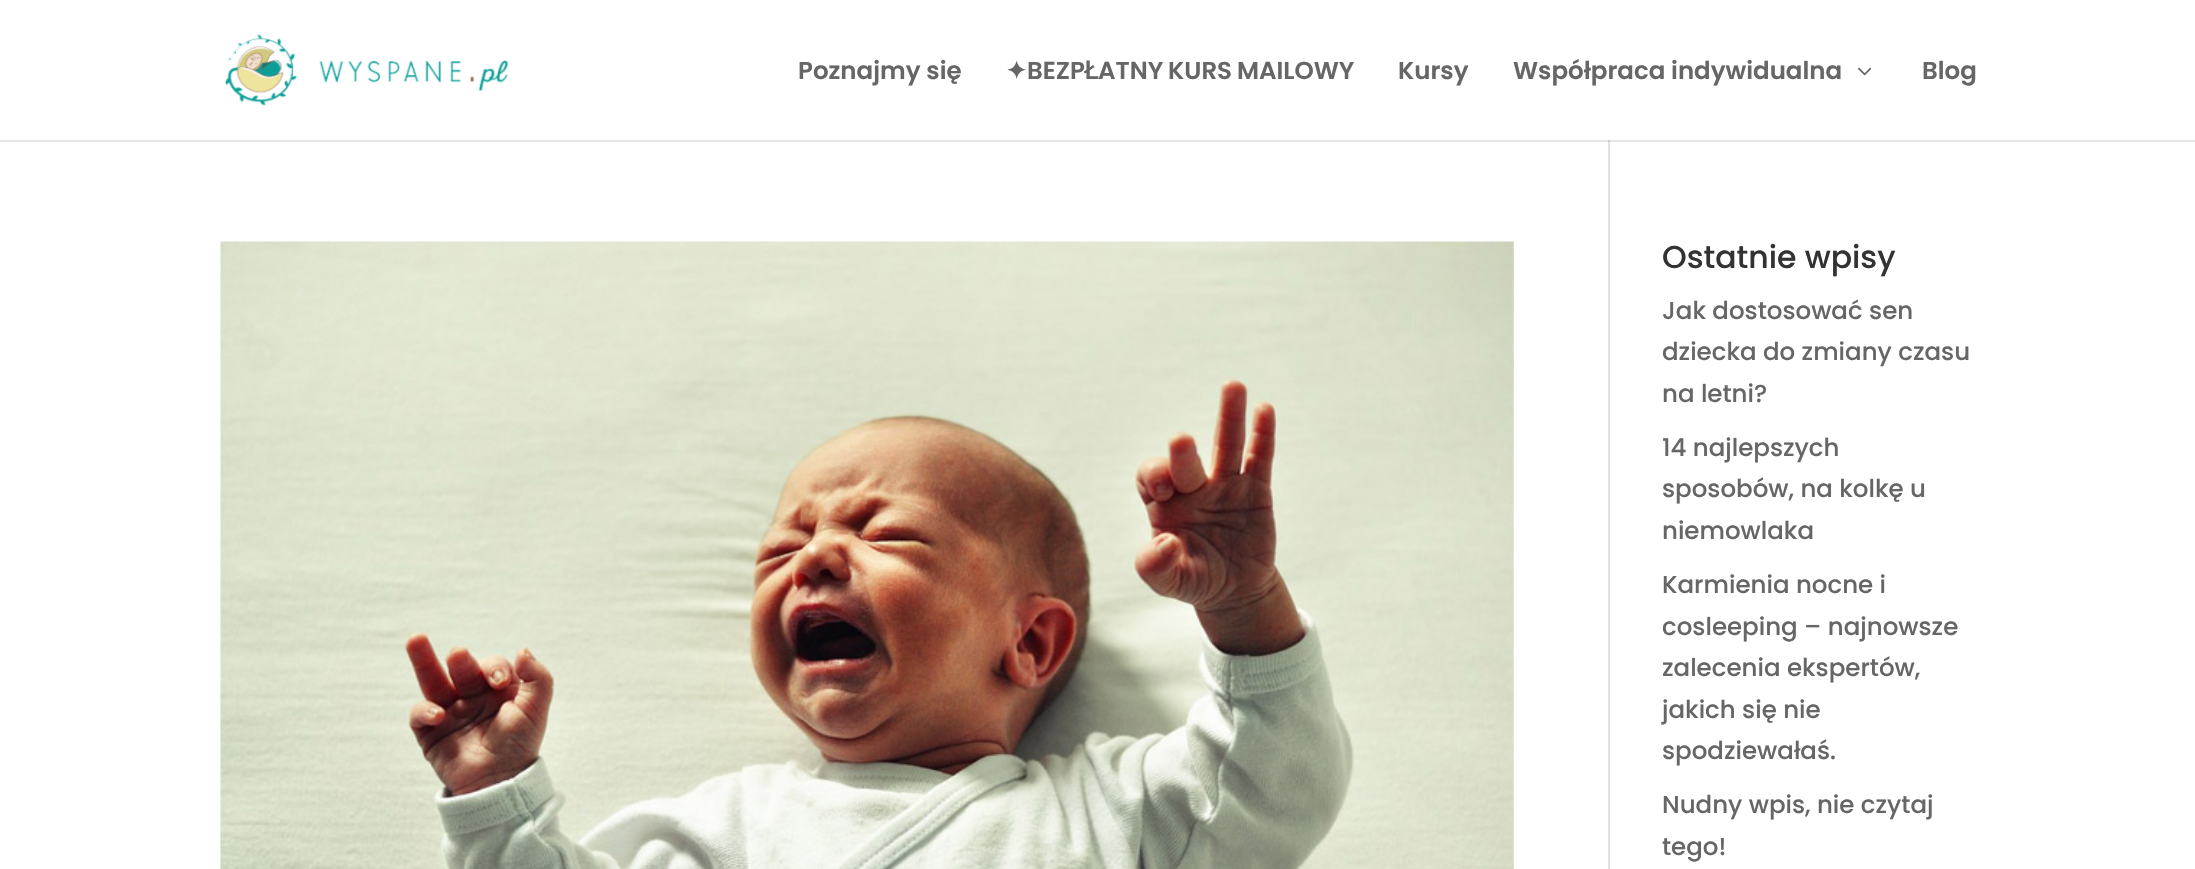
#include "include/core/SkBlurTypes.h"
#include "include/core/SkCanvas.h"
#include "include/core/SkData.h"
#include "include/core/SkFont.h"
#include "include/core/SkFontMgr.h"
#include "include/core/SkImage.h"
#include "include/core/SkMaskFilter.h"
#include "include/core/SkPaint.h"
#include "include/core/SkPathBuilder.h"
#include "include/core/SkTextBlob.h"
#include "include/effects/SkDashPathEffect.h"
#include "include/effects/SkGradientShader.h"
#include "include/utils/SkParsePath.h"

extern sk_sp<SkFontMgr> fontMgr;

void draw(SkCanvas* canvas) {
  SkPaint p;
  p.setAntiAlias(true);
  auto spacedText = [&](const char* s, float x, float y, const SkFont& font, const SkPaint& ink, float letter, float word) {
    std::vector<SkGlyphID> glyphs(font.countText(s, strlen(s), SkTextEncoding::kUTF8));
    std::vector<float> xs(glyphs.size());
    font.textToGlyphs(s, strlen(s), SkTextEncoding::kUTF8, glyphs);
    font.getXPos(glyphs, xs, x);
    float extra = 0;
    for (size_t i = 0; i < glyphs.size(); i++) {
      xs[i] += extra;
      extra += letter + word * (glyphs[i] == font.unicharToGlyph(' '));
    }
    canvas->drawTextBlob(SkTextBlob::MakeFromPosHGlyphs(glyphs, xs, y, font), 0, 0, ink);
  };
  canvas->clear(SK_ColorWHITE);
  p.setColor(SkColorSetRGB(230, 230, 230));
  canvas->drawRect(SkRect::MakeLTRB(0, 140, 2195, 142), p);
  canvas->drawImageRect(SkImages::DeferredFromEncodedData(SkData::MakeFromFileName("images/1.png")), SkRect::MakeLTRB(225, 34, 508, 106), SkSamplingOptions());
  canvas->drawImageRect(SkImages::DeferredFromEncodedData(SkData::MakeFromFileName("images/2.png")), SkRect::MakeLTRB(1858, 67, 1872, 76), SkSamplingOptions());
  p.setColor(SkColorSetRGB(226, 226, 226));
  canvas->drawRect(SkRect::MakeLTRB(1608, 140, 1610, 869), p);
  p.setColor(SkColorSetRGB(203, 203, 203));
  canvas->drawRect(SkRect::MakeLTRB(1608, 140, 1610, 142), p);
  canvas->drawImageRect(SkImages::DeferredFromEncodedData(SkData::MakeFromFileName("images/3.png")), SkRect::MakeLTRB(220, 241, 1514, 869), SkSamplingOptions());
  SkFont font1(fontMgr->matchFamilyStyle("Poppins", SkFontStyle(600, SkFontStyle::kNormal_Width, SkFontStyle::kUpright_Slant)), 24.5f);
  font1.setSubpixel(true);
  p.setColor(SkColorSetRGB(102, 102, 102));
  canvas->drawString("Poznajmy się", 798, 79, font1, p);
  SkFont font2(fontMgr->matchFamilyStyle("DejaVu Sans", SkFontStyle::Bold()), 24.5f);
  font2.setSubpixel(true);
  canvas->drawString("✦", 1006, 79, font2, p);
  canvas->drawString("BEZP", 1027, 79, font1, p);
  canvas->drawString("Ł", 1084, 79, font2, p);
  spacedText("ATNY KURS MAILOWY", 1098, 79, font1, p, 0, -1);
  canvas->drawString("Kursy", 1398, 79, font1, p);
  canvas->drawString("Współpraca indywidualna", 1513, 79, font1, p);
  canvas->drawString("Blog", 1922, 79, font1, p);
  SkFont font3(fontMgr->matchFamilyStyle("Poppins", SkFontStyle(500, SkFontStyle::kNormal_Width, SkFontStyle::kUpright_Slant)), 31.5f);
  font3.setSubpixel(true);
  p.setColor(SkColorSetRGB(51, 51, 51));
  canvas->drawString("Ostatnie wpisy", 1662, 268, font3, p);
  SkFont font4(fontMgr->matchFamilyStyle("Poppins", SkFontStyle(500, SkFontStyle::kNormal_Width, SkFontStyle::kUpright_Slant)), 24.5f);
  font4.setSubpixel(true);
  p.setColor(SkColorSetRGB(102, 102, 102));
  canvas->drawString("Jak dostosować sen", 1662, 319, font4, p);
  canvas->drawString("dziecka do zmiany czasu", 1662, 360, font4, p);
  canvas->drawString("na letni?", 1662, 402, font4, p);
  canvas->drawString("14 najlepszych", 1662, 456, font4, p);
  canvas->drawString("sposobów, na kolkę u", 1662, 497, font4, p);
  canvas->drawString("niemowlaka", 1662, 539, font4, p);
  canvas->drawString("Karmienia nocne i", 1662, 593, font4, p);
  canvas->drawString("cosleeping – najnowsze", 1662, 635, font4, p);
  canvas->drawString("zalecenia ekspertów,", 1662, 676, font4, p);
  canvas->drawString("jakich się nie", 1662, 718, font4, p);
  canvas->drawString("spodziewałaś.", 1662, 759, font4, p);
  canvas->drawString("Nudny wpis, nie czytaj", 1662, 813, font4, p);
  canvas->drawString("tego!", 1662, 855, font4, p);
}
